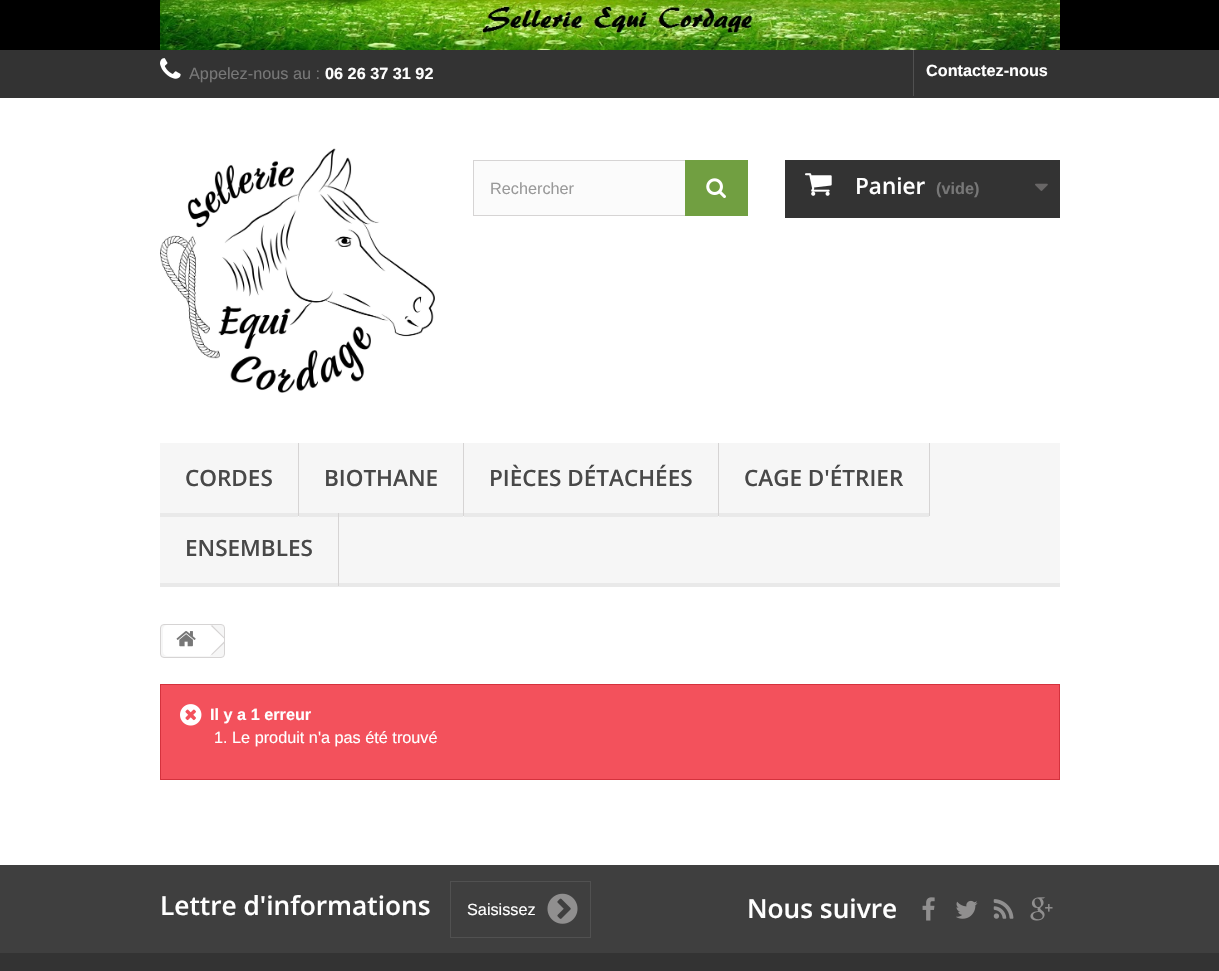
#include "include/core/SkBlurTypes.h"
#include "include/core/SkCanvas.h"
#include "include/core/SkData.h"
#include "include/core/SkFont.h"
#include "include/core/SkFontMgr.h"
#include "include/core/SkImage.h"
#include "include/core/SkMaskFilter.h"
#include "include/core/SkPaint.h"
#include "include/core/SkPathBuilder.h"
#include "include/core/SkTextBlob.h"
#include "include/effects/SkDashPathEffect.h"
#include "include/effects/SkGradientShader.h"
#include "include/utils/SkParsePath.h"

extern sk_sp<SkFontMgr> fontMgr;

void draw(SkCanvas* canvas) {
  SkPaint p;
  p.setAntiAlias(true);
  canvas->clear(SkColorSetRGB(51, 51, 51));
  p.setColor(SK_ColorWHITE);
  canvas->drawRect(SkRect::MakeLTRB(0, 98, 1219, 865), p);
  p.setColor(SK_ColorBLACK);
  canvas->drawRect(SkRect::MakeLTRB(0, 0, 1219, 50), p);
  canvas->drawImageRect(SkImages::DeferredFromEncodedData(SkData::MakeFromFileName("images/1.png")), SkRect::MakeLTRB(160, 0, 1060, 50), SkSamplingOptions());
  canvas->drawImageRect(SkImages::DeferredFromEncodedData(SkData::MakeFromFileName("images/2.png")), SkRect::MakeLTRB(160, 58, 181, 79), SkSamplingOptions());
  p.setColor(SkColorSetRGB(81, 81, 81));
  canvas->drawRect(SkRect::MakeLTRB(913, 50, 914, 96), p);
  canvas->drawImageRect(SkImages::DeferredFromEncodedData(SkData::MakeFromFileName("images/3.png")), SkRect::MakeLTRB(160, 148, 435, 393), SkSamplingOptions());
  p.setColor(SkColorSetRGB(251, 251, 251));
  canvas->drawRect(SkRect::MakeLTRB(474, 161, 685, 215), p);
  p.setStyle(SkPaint::kStroke_Style);
  p.setStrokeWidth(1);
  p.setColor(SkColorSetRGB(214, 212, 212));
  canvas->drawRect(SkRect::MakeLTRB(473.5f, 160.5f, 747.5f, 215.5f), p);
  p.setStyle(SkPaint::kFill_Style);
  p.setColor(SkColorSetRGB(113, 159, 65));
  canvas->drawRect(SkRect::MakeLTRB(685, 160, 748, 216), p);
  canvas->drawImageRect(SkImages::DeferredFromEncodedData(SkData::MakeFromFileName("images/4.png")), SkRect::MakeLTRB(706, 178, 726, 198), SkSamplingOptions());
  p.setColor(SkColorSetRGB(51, 51, 51));
  canvas->drawRect(SkRect::MakeLTRB(785, 160, 1060, 218), p);
  canvas->drawImageRect(SkImages::DeferredFromEncodedData(SkData::MakeFromFileName("images/5.png")), SkRect::MakeLTRB(805, 173, 832, 196), SkSamplingOptions());
  canvas->drawImageRect(SkImages::DeferredFromEncodedData(SkData::MakeFromFileName("images/6.png")), SkRect::MakeLTRB(1035, 183, 1048, 191), SkSamplingOptions());
  p.setColor(SkColorSetRGB(246, 246, 246));
  canvas->drawRect(SkRect::MakeLTRB(160, 443, 1060, 583), p);
  p.setColor(SkColorSetRGB(233, 233, 233));
  canvas->drawRect(SkRect::MakeLTRB(160, 583, 1060, 587), p);
  p.setColor(SkColorSetRGB(214, 212, 212));
  canvas->drawRect(SkRect::MakeLTRB(298, 443, 299, 516), p);
  p.setColor(SkColorSetRGB(233, 233, 233));
  canvas->drawRect(SkRect::MakeLTRB(160, 513, 298, 517), p);
  p.setColor(SkColorSetRGB(214, 212, 212));
  canvas->drawRect(SkRect::MakeLTRB(463, 443, 464, 516), p);
  p.setColor(SkColorSetRGB(233, 233, 233));
  canvas->drawRect(SkRect::MakeLTRB(299, 513, 463, 517), p);
  p.setColor(SkColorSetRGB(214, 212, 212));
  canvas->drawRect(SkRect::MakeLTRB(718, 443, 719, 516), p);
  p.setColor(SkColorSetRGB(233, 233, 233));
  canvas->drawRect(SkRect::MakeLTRB(464, 513, 718, 517), p);
  p.setColor(SkColorSetRGB(214, 212, 212));
  canvas->drawRect(SkRect::MakeLTRB(929, 443, 930, 516), p);
  p.setColor(SkColorSetRGB(233, 233, 233));
  canvas->drawRect(SkRect::MakeLTRB(719, 513, 929, 517), p);
  p.setColor(SkColorSetRGB(214, 212, 212));
  canvas->drawRect(SkRect::MakeLTRB(338, 513, 339, 586), p);
  p.setColor(SkColorSetRGB(246, 246, 246));
  canvas->drawRoundRect(SkRect::MakeLTRB(160.5f, 624.5f, 224.5f, 657.5f), 3.5f, 3.5f, p);
  p.setStyle(SkPaint::kStroke_Style);
  p.setColor(SkColorSetRGB(214, 212, 212));
  canvas->drawRoundRect(SkRect::MakeLTRB(160.5f, 624.5f, 224.5f, 657.5f), 3.5f, 3.5f, p);
  p.setStyle(SkPaint::kFill_Style);
  p.setColor(SK_ColorWHITE);
  canvas->drawPath(SkPathBuilder().moveTo(167, 625).lineTo(210, 625).lineTo(210, 656).lineTo(167, 656).cubicTo(165, 656, 163, 654, 163, 652).lineTo(163, 629).cubicTo(163, 627, 165, 625, 167, 625).close().detach(), p);
  canvas->drawImageRect(SkImages::DeferredFromEncodedData(SkData::MakeFromFileName("images/7.png")), SkRect::MakeLTRB(176, 631, 196, 647), SkSamplingOptions());
  canvas->drawPath(SkPathBuilder().moveTo(213, 626).lineTo(224, 637).lineTo(224, 643.5f).lineTo(213, 654.5f).cubicTo(212, 655.5f, 210.5f, 655.5f, 209.5f, 654.5f).lineTo(197, 642).cubicTo(196, 641, 196, 639.5f, 197, 638.5f).lineTo(209.5f, 626).cubicTo(210.5f, 625, 212, 625, 213, 626).close().detach(), p);
  p.setColor(SkColorSetRGB(214, 212, 212));
  canvas->drawPath(SkPathBuilder().moveTo(212, 625).lineTo(224, 637).lineTo(224, 638.5f).lineTo(211, 626).close().moveTo(224, 641.5f).lineTo(224, 643.5f).lineTo(212, 655).lineTo(211, 654.5f).close().detach(), p);
  p.setColor(SkColorSetRGB(243, 81, 92));
  canvas->drawRect(SkRect::MakeLTRB(160.5f, 684.5f, 1059.5f, 779.5f), p);
  p.setStyle(SkPaint::kStroke_Style);
  p.setColor(SkColorSetRGB(212, 50, 61));
  canvas->drawRect(SkRect::MakeLTRB(160.5f, 684.5f, 1059.5f, 779.5f), p);
  canvas->drawImageRect(SkImages::DeferredFromEncodedData(SkData::MakeFromFileName("images/8.png")), SkRect::MakeLTRB(180, 704, 202, 726), SkSamplingOptions());
  p.setStyle(SkPaint::kFill_Style);
  p.setColor(SkColorSetRGB(63, 63, 63));
  canvas->drawRect(SkRect::MakeLTRB(0, 865, 1219, 953), p);
  p.setStyle(SkPaint::kStroke_Style);
  p.setColor(SkColorSetRGB(81, 81, 81));
  canvas->drawRect(SkRect::MakeLTRB(450.5f, 881.5f, 590.5f, 937.5f), p);
  canvas->drawImageRect(SkImages::DeferredFromEncodedData(SkData::MakeFromFileName("images/9.png")), SkRect::MakeLTRB(547, 893, 578, 924), SkSamplingOptions());
  canvas->drawImageRect(SkImages::DeferredFromEncodedData(SkData::MakeFromFileName("images/10.png")), SkRect::MakeLTRB(922, 897, 935, 921), SkSamplingOptions());
  canvas->drawImageRect(SkImages::DeferredFromEncodedData(SkData::MakeFromFileName("images/11.png")), SkRect::MakeLTRB(956, 900, 978, 919), SkSamplingOptions());
  canvas->drawImageRect(SkImages::DeferredFromEncodedData(SkData::MakeFromFileName("images/12.png")), SkRect::MakeLTRB(993, 899, 1014, 919), SkSamplingOptions());
  canvas->drawImageRect(SkImages::DeferredFromEncodedData(SkData::MakeFromFileName("images/13.png")), SkRect::MakeLTRB(1030, 897, 1053, 921), SkSamplingOptions());
  SkFont font1(fontMgr->matchFamilyStyle("Liberation Sans", SkFontStyle::Normal()), 16.25f);
  font1.setSubpixel(true);
  p.setStyle(SkPaint::kFill_Style);
  p.setColor(SkColorSetRGB(119, 119, 119));
  canvas->drawString("Appelez-nous au :", 189, 79, font1, p);
  SkFont font2(fontMgr->matchFamilyStyle("Liberation Sans", SkFontStyle::Bold()), 16.25f);
  font2.setSubpixel(true);
  p.setColor(SK_ColorWHITE);
  canvas->drawString("06 26 37 31 92", 325, 79, font2, p);
  canvas->drawString("Contactez-nous", 926, 76, font2, p);
  p.setColor(SkColorSetRGB(153, 153, 153));
  canvas->drawString("Rechercher", 490, 194, font1, p);
  SkFont font3(fontMgr->matchFamilyStyle("Open Sans", SkFontStyle(600, SkFontStyle::kNormal_Width, SkFontStyle::kUpright_Slant)), 22.5f);
  font3.setSubpixel(true);
  p.setColor(SK_ColorWHITE);
  canvas->drawString("Panier", 855, 194, font3, p);
  p.setColor(SkColorSetRGB(119, 119, 119));
  canvas->drawString("(vide)", 936, 194, font2, p);
  p.setColor(SkColorSetRGB(72, 72, 72));
  canvas->drawString("CORDES", 185, 486, font3, p);
  canvas->drawString("BIOTHANE", 324, 486, font3, p);
  canvas->drawString("PIÈCES DÉTACHÉES", 489, 486, font3, p);
  canvas->drawString("CAGE D'ÉTRIER", 744, 486, font3, p);
  canvas->drawString("ENSEMBLES", 185, 556, font3, p);
  p.setColor(SK_ColorWHITE);
  canvas->drawString("Il y a 1 erreur", 210, 720, font2, p);
  canvas->drawString("1. Le produit n'a pas été trouvé", 214, 743, font1, p);
  SkFont font4(fontMgr->matchFamilyStyle("Open Sans", SkFontStyle(600, SkFontStyle::kNormal_Width, SkFontStyle::kUpright_Slant)), 26.25f);
  font4.setSubpixel(true);
  canvas->drawString("Lettre d'informations", 160, 915, font4, p);
  canvas->drawString("Saisissez", 467, 915, font1, p);
  canvas->drawString("Nous suivre", 747, 918, font4, p);
}
